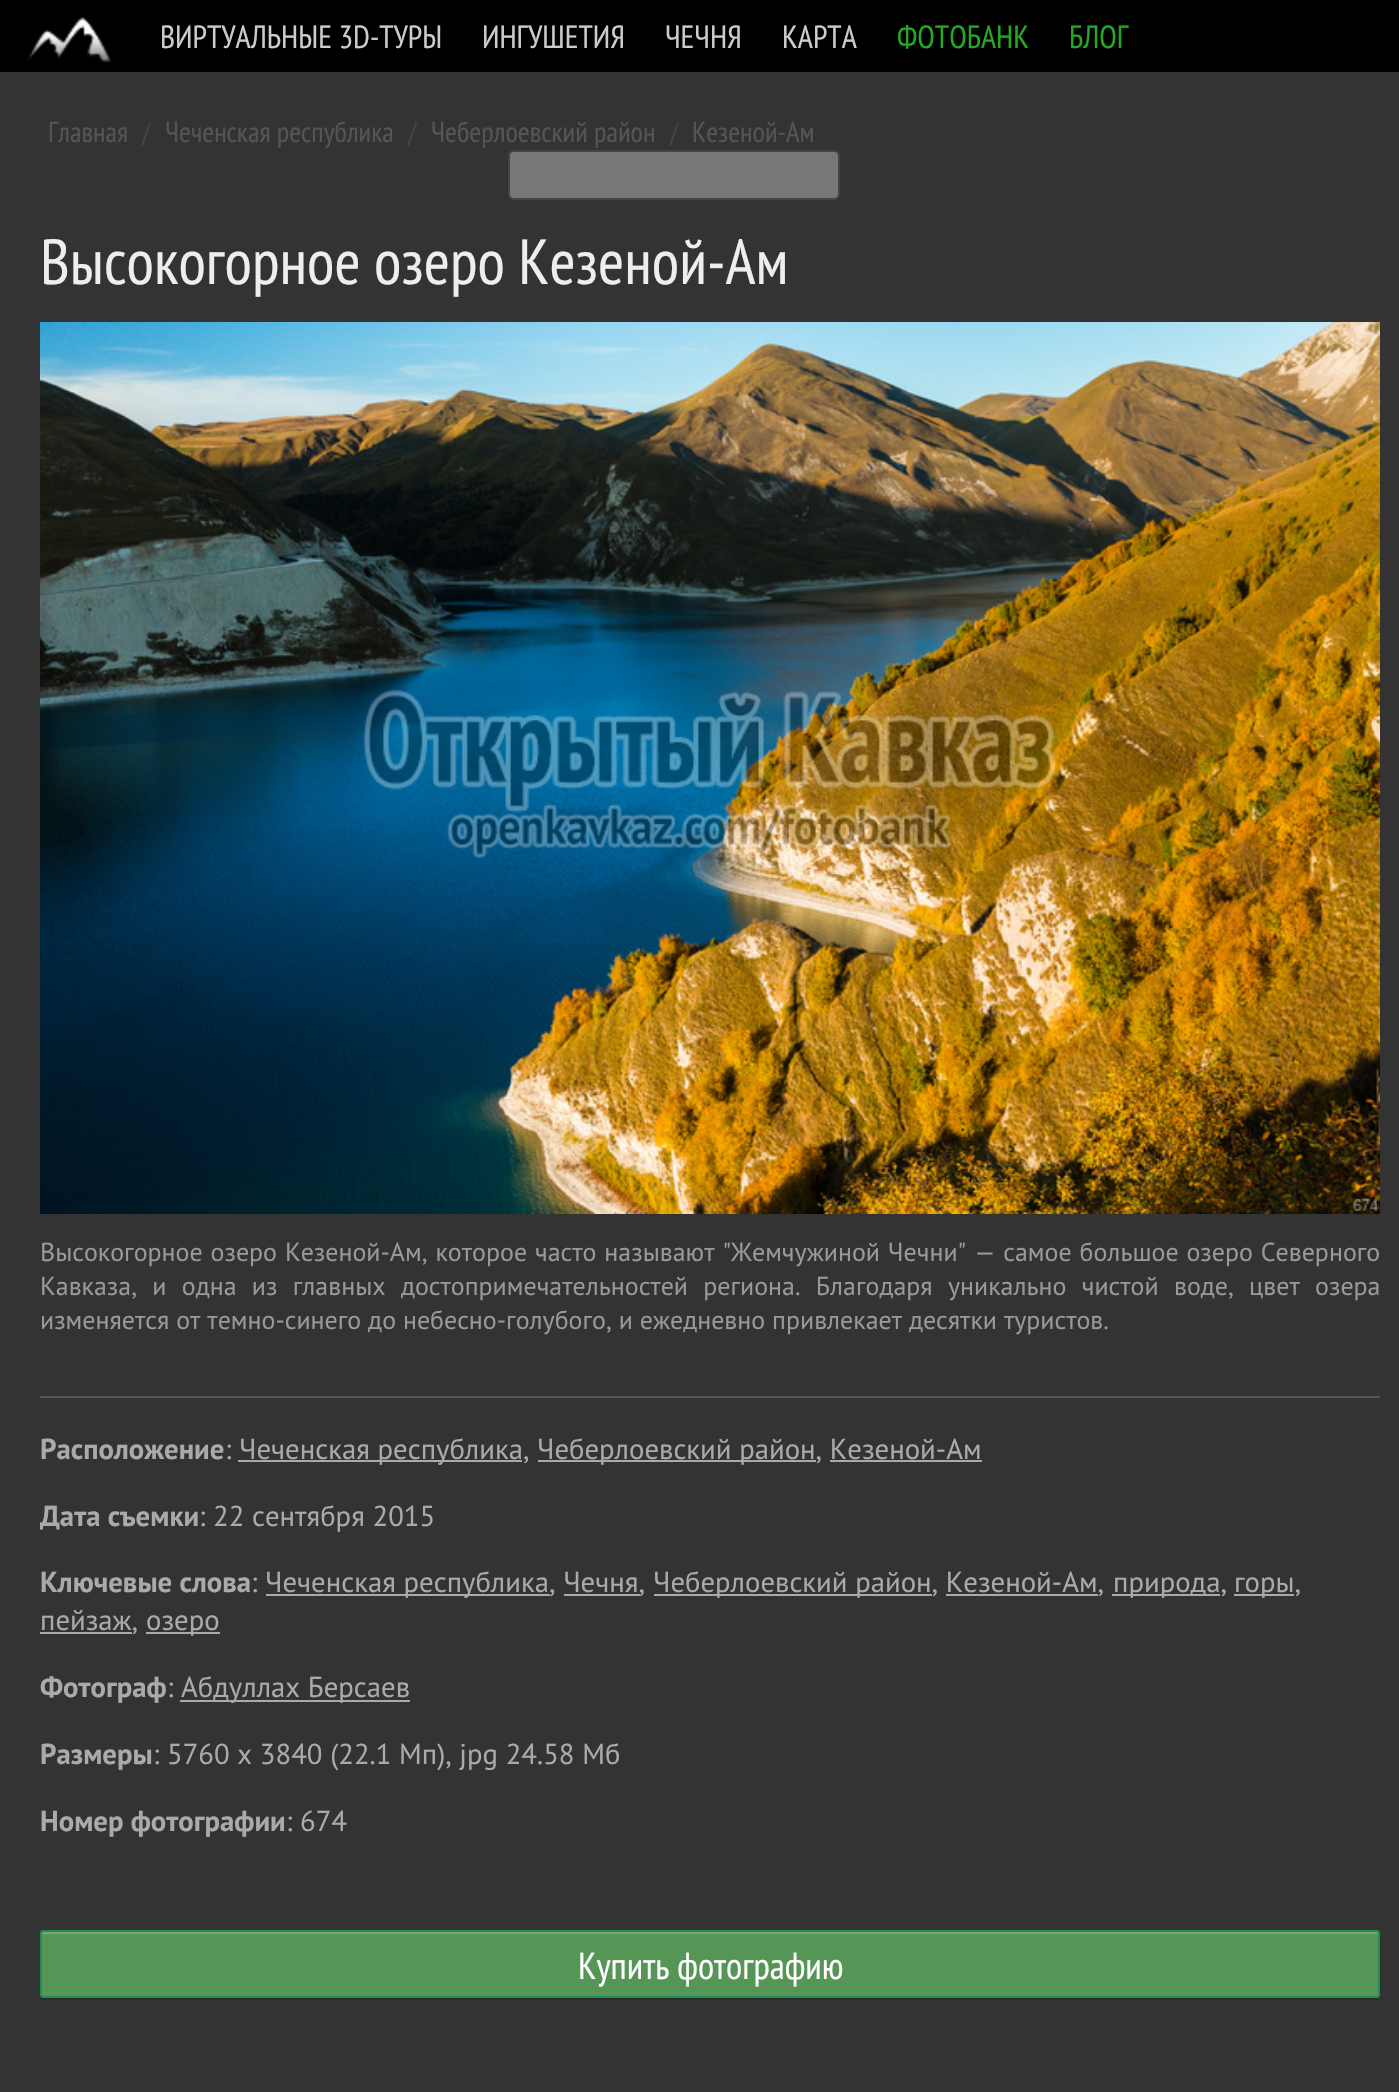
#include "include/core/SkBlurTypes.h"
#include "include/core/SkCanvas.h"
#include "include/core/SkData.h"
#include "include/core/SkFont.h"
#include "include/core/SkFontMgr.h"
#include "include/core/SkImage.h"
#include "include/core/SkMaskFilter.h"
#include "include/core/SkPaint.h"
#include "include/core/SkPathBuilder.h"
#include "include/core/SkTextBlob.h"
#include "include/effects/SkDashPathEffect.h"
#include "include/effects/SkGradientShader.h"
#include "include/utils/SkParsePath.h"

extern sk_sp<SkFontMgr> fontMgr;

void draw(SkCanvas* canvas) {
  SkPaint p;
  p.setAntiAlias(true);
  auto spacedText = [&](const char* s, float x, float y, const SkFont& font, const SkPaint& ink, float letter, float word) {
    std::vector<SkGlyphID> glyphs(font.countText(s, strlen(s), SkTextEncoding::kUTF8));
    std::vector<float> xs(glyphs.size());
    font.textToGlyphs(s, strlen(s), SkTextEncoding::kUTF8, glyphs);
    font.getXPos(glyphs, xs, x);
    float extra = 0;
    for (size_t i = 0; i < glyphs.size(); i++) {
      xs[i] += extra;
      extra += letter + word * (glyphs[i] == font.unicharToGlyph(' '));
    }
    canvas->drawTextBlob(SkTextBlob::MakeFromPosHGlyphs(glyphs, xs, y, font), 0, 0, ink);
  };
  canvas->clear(SK_ColorBLACK);
  canvas->drawImageRect(SkImages::DeferredFromEncodedData(SkData::MakeFromFileName("images/1.png")), SkRect::MakeLTRB(27, 17, 111, 62), SkSamplingOptions());
  p.setColor(SkColorSetRGB(51, 51, 51));
  canvas->drawRect(SkRect::MakeLTRB(0, 72, 1399, 2092), p);
  p.setColor(SkColorSetRGB(119, 119, 119));
  canvas->drawRoundRect(SkRect::MakeLTRB(509, 151, 839, 199), 5, 5, p);
  p.setStyle(SkPaint::kStroke_Style);
  p.setStrokeWidth(2);
  p.setColor(SkColorSetRGB(68, 68, 68));
  canvas->drawRoundRect(SkRect::MakeLTRB(509, 151, 839, 199), 5, 5, p);
  canvas->drawImageRect(SkImages::DeferredFromEncodedData(SkData::MakeFromFileName("images/2.png")), SkRect::MakeLTRB(40, 322, 1380, 1214), SkSamplingOptions());
  p.setStyle(SkPaint::kFill_Style);
  p.setColor(SkColorSetRGB(85, 85, 85));
  canvas->drawRect(SkRect::MakeLTRB(40, 1396, 1380, 1398), p);
  p.setColor(SkColorSetRGB(170, 170, 170));
  canvas->drawRect(SkRect::MakeLTRB(238, 1460, 522, 1462), p);
  canvas->drawRect(SkRect::MakeLTRB(538, 1460, 816, 1462), p);
  canvas->drawRect(SkRect::MakeLTRB(830, 1460, 982, 1462), p);
  canvas->drawRect(SkRect::MakeLTRB(266, 1594, 550, 1596), p);
  canvas->drawRect(SkRect::MakeLTRB(654, 1594, 932, 1596), p);
  canvas->drawRect(SkRect::MakeLTRB(1112, 1594, 1220, 1596), p);
  canvas->drawRect(SkRect::MakeLTRB(1234, 1594, 1294, 1596), p);
  canvas->drawRect(SkRect::MakeLTRB(564, 1594, 640, 1596), p);
  canvas->drawRect(SkRect::MakeLTRB(946, 1594, 1098, 1596), p);
  canvas->drawRect(SkRect::MakeLTRB(40, 1632, 132, 1634), p);
  canvas->drawRect(SkRect::MakeLTRB(146, 1632, 220, 1634), p);
  canvas->drawRect(SkRect::MakeLTRB(180, 1700, 410, 1702), p);
  p.setColor(SkColorSetARGB(51, 0, 0, 0));
  p.setMaskFilter(SkMaskFilter::MakeBlur(kNormal_SkBlurStyle, 1));
  canvas->drawRoundRect(SkRect::MakeLTRB(40, 1932, 1380, 2000), 4, 4, p);
  p.setMaskFilter(nullptr);
  p.setColor(SkColorSetRGB(85, 149, 85));
  canvas->drawRoundRect(SkRect::MakeLTRB(40, 1930, 1380, 1998), 4, 4, p);
  p.setColor(SkColorSetRGB(119, 170, 119));
  canvas->drawPath(SkPathBuilder().moveTo(44, 1934).lineTo(1376, 1934).cubicTo(1377, 1934, 1378, 1935, 1378, 1936).cubicTo(1378, 1934, 1378, 1932, 1376, 1932).lineTo(44, 1932).cubicTo(42, 1932, 42, 1934, 42, 1936).cubicTo(42, 1935, 43, 1934, 44, 1934).close().detach(), p);
  p.setStyle(SkPaint::kStroke_Style);
  p.setColor(SkColorSetRGB(32, 141, 83));
  canvas->drawRoundRect(SkRect::MakeLTRB(41, 1931, 1379, 1997), 3, 3, p);
  SkFont font1(fontMgr->matchFamilyStyle("PT Sans Narrow", SkFontStyle::Normal()), 32);
  font1.setSubpixel(true);
  p.setStyle(SkPaint::kFill_Style);
  p.setColor(SkColorSetRGB(204, 204, 204));
  canvas->drawString("ВИРТУАЛЬНЫЕ 3D-ТУРЫ", 160, 48, font1, p);
  canvas->drawString("ИНГУШЕТИЯ", 482, 48, font1, p);
  canvas->drawString("ЧЕЧНЯ", 665, 48, font1, p);
  canvas->drawString("КАРТА", 782, 48, font1, p);
  p.setColor(SkColorSetRGB(34, 170, 34));
  canvas->drawString("ФОТОБАНК", 897, 48, font1, p);
  canvas->drawString("БЛОГ", 1069, 48, font1, p);
  SkFont font2(fontMgr->matchFamilyStyle("PT Sans Narrow", SkFontStyle::Normal()), 28.75f);
  font2.setSubpixel(true);
  p.setColor(SkColorSetRGB(85, 85, 85));
  canvas->drawString("Главная", 48, 142, font2, p);
  p.setColor(SkColorSetRGB(68, 68, 68));
  canvas->drawString("/", 142, 142, font2, p);
  p.setColor(SkColorSetRGB(85, 85, 85));
  canvas->drawString("Чеченская республика", 165, 142, font2, p);
  p.setColor(SkColorSetRGB(68, 68, 68));
  canvas->drawString("/", 408, 142, font2, p);
  p.setColor(SkColorSetRGB(85, 85, 85));
  canvas->drawString("Чеберлоевский район", 431, 142, font2, p);
  p.setColor(SkColorSetRGB(68, 68, 68));
  canvas->drawString("/", 670, 142, font2, p);
  p.setColor(SkColorSetRGB(85, 85, 85));
  canvas->drawString("Кезеной-Ам", 692, 142, font2, p);
  SkFont font3(fontMgr->matchFamilyStyle("PT Sans Narrow", SkFontStyle::Normal()), 63.4f);
  font3.setSubpixel(true);
  p.setColor(SkColorSetRGB(238, 238, 238));
  canvas->drawString("Высокогорное озеро Кезеной-Ам", 40, 284, font3, p);
  SkFont font4(fontMgr->matchFamilyStyle("PT Sans", SkFontStyle::Normal()), 25.92f);
  font4.setSubpixel(true);
  p.setColor(SkColorSetRGB(153, 153, 153));
  spacedText("Высокогорное озеро Кезеной-Ам, которое часто называют \"Жемчужиной Чечни\" — самое большое озеро Северного", 40, 1261, font4, p, 0, 1);
  spacedText("Кавказа, и одна из главных достопримечательностей региона. Благодаря уникально чистой воде, цвет озера", 40, 1295, font4, p, 0, 8.4f);
  canvas->drawString("изменяется от темно-синего до небесно-голубого, и ежедневно привлекает десятки туристов.", 40, 1329, font4, p);
  SkFont font5(fontMgr->matchFamilyStyle("PT Sans", SkFontStyle::Bold()), 28.75f);
  font5.setSubpixel(true);
  p.setColor(SkColorSetRGB(170, 170, 170));
  canvas->drawString("Расположение", 40, 1459, font5, p);
  SkFont font6(fontMgr->matchFamilyStyle("PT Sans", SkFontStyle::Normal()), 28.75f);
  font6.setSubpixel(true);
  canvas->drawString(":", 225, 1459, font6, p);
  canvas->drawString("Чеченская республика,", 239, 1459, font6, p);
  canvas->drawString("Чеберлоевский район, Кезеной-Ам", 537, 1459, font6, p);
  canvas->drawString("Дата съемки", 40, 1526, font5, p);
  canvas->drawString(": 22 сентября 2015", 199, 1526, font6, p);
  canvas->drawString("Ключевые слова", 40, 1592, font5, p);
  canvas->drawString(":", 251, 1592, font6, p);
  canvas->drawString("Чеченская республика, Чечня,", 265, 1592, font6, p);
  canvas->drawString("Чеберлоевский район, Кезеной-Ам,", 653, 1592, font6, p);
  canvas->drawString("природа,", 1113, 1592, font6, p);
  canvas->drawString("горы,", 1234, 1592, font6, p);
  canvas->drawString("пейзаж,", 40, 1630, font6, p);
  canvas->drawString("озеро", 146, 1630, font6, p);
  canvas->drawString("Фотограф", 40, 1697, font5, p);
  canvas->drawString(":", 167, 1697, font6, p);
  canvas->drawString("Абдуллах Берсаев", 181, 1697, font6, p);
  canvas->drawString("Размеры", 40, 1764, font5, p);
  canvas->drawString(": 5760 x 3840 (22.1 Мп), jpg 24.58 Мб", 153, 1764, font6, p);
  canvas->drawString("Номер фотографии", 40, 1831, font5, p);
  canvas->drawString(": 674", 286, 1831, font6, p);
  SkFont font7(fontMgr->matchFamilyStyle("PT Sans Narrow", SkFontStyle::Normal()), 37.5f);
  font7.setSubpixel(true);
  p.setColor(SK_ColorWHITE);
  canvas->drawString("Купить фотографию", 578, 1979, font7, p);
}
